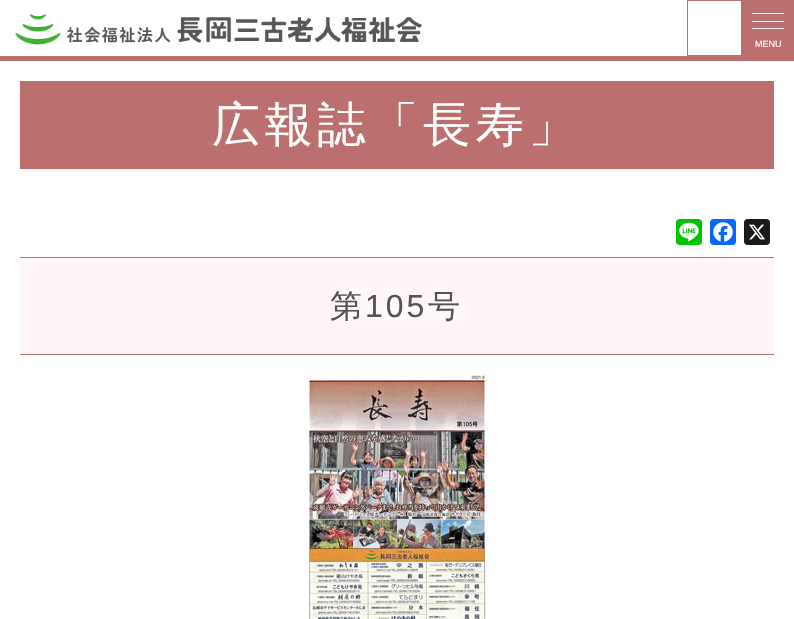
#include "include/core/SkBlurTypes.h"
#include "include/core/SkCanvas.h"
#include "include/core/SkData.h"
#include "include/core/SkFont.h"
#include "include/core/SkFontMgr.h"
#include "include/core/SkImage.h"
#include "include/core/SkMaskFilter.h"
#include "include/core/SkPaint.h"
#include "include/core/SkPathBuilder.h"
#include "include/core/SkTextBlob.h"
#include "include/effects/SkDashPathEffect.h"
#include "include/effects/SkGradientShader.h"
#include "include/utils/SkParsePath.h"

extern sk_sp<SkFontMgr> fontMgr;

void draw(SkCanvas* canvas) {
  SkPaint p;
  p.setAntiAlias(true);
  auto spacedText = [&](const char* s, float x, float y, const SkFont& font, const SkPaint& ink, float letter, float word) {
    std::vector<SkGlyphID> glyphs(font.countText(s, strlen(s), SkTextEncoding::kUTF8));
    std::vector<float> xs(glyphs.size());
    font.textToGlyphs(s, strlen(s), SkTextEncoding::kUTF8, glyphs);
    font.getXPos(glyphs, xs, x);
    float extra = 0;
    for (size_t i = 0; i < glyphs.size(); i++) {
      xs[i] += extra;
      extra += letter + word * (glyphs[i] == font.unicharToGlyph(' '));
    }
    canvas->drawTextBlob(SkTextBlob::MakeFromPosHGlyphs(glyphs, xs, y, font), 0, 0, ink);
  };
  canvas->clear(SK_ColorWHITE);
  canvas->drawImageRect(SkImages::DeferredFromEncodedData(SkData::MakeFromFileName("images/1.png")), SkRect::MakeLTRB(15, 14, 422, 45), SkSamplingOptions());
  p.setStyle(SkPaint::kStroke_Style);
  p.setStrokeWidth(1);
  p.setColor(SkColorSetRGB(188, 111, 111));
  canvas->drawRect(SkRect::MakeLTRB(687.5f, 0.5f, 741.5f, 55.5f), p);
  p.setStyle(SkPaint::kFill_Style);
  canvas->drawRect(SkRect::MakeLTRB(742, 0, 794, 56), p);
  p.setColor(SK_ColorWHITE);
  canvas->drawRect(SkRect::MakeLTRB(752, 13, 784, 14), p);
  canvas->drawRect(SkRect::MakeLTRB(752, 21, 784, 22), p);
  canvas->drawRect(SkRect::MakeLTRB(752, 28, 784, 29), p);
  p.setColor(SkColorSetRGB(188, 111, 111));
  canvas->drawRect(SkRect::MakeLTRB(0, 56, 794, 61), p);
  canvas->drawRect(SkRect::MakeLTRB(20, 81, 774, 169), p);
  p.setColor(SkColorSetRGB(0, 195, 0));
  canvas->drawRoundRect(SkRect::MakeLTRB(676, 219, 702, 245), 4, 4, p);
  canvas->drawImageRect(SkImages::DeferredFromEncodedData(SkData::MakeFromFileName("images/2.png")), SkRect::MakeLTRB(679, 222, 699, 242), SkSamplingOptions());
  p.setColor(SkColorSetRGB(8, 102, 255));
  canvas->drawRoundRect(SkRect::MakeLTRB(710, 219, 736, 245), 4, 4, p);
  canvas->drawImageRect(SkImages::DeferredFromEncodedData(SkData::MakeFromFileName("images/3.png")), SkRect::MakeLTRB(713, 222, 733, 242), SkSamplingOptions());
  p.setColor(SkColorSetRGB(26, 26, 26));
  canvas->drawRoundRect(SkRect::MakeLTRB(744, 219, 770, 245), 4, 4, p);
  canvas->drawImageRect(SkImages::DeferredFromEncodedData(SkData::MakeFromFileName("images/4.png")), SkRect::MakeLTRB(749, 224, 765, 240), SkSamplingOptions());
  p.setColor(SkColorSetRGB(255, 247, 247));
  canvas->drawRect(SkRect::MakeLTRB(20, 258, 774, 354), p);
  p.setColor(SkColorSetRGB(188, 111, 111));
  canvas->drawRect(SkRect::MakeLTRB(20, 257, 774, 258), p);
  canvas->drawRect(SkRect::MakeLTRB(20, 354, 774, 355), p);
  canvas->drawImageRect(SkImages::DeferredFromEncodedData(SkData::MakeFromFileName("images/5.png")), SkRect::MakeLTRB(307, 375, 487, 619), SkSamplingOptions());
  SkFont font1(fontMgr->matchFamilyStyle("Liberation Sans", SkFontStyle::Normal()), 9);
  font1.setSubpixel(true);
  p.setColor(SK_ColorWHITE);
  canvas->drawString("MENU", 755, 47, font1, p);
  SkFont font2(fontMgr->matchFamilyStyle("WenQuanYi Zen Hei", SkFontStyle(500, SkFontStyle::kNormal_Width, SkFontStyle::kUpright_Slant)), 48);
  font2.setSubpixel(true);
  spacedText("広報誌「長寿」", 212, 141, font2, p, 4.75f, 0);
  SkFont font3(fontMgr->matchFamilyStyle("WenQuanYi Zen Hei", SkFontStyle(500, SkFontStyle::kNormal_Width, SkFontStyle::kUpright_Slant)), 32);
  font3.setSubpixel(true);
  p.setColor(SkColorSetRGB(84, 84, 84));
  spacedText("第", 330, 317, font3, p, 3, 0);
  SkFont font4(fontMgr->matchFamilyStyle("Liberation Sans", SkFontStyle::Normal()), 32);
  font4.setSubpixel(true);
  spacedText("105", 365, 317, font4, p, 3, 0);
  spacedText("号", 428, 317, font3, p, 3, 0);
}
